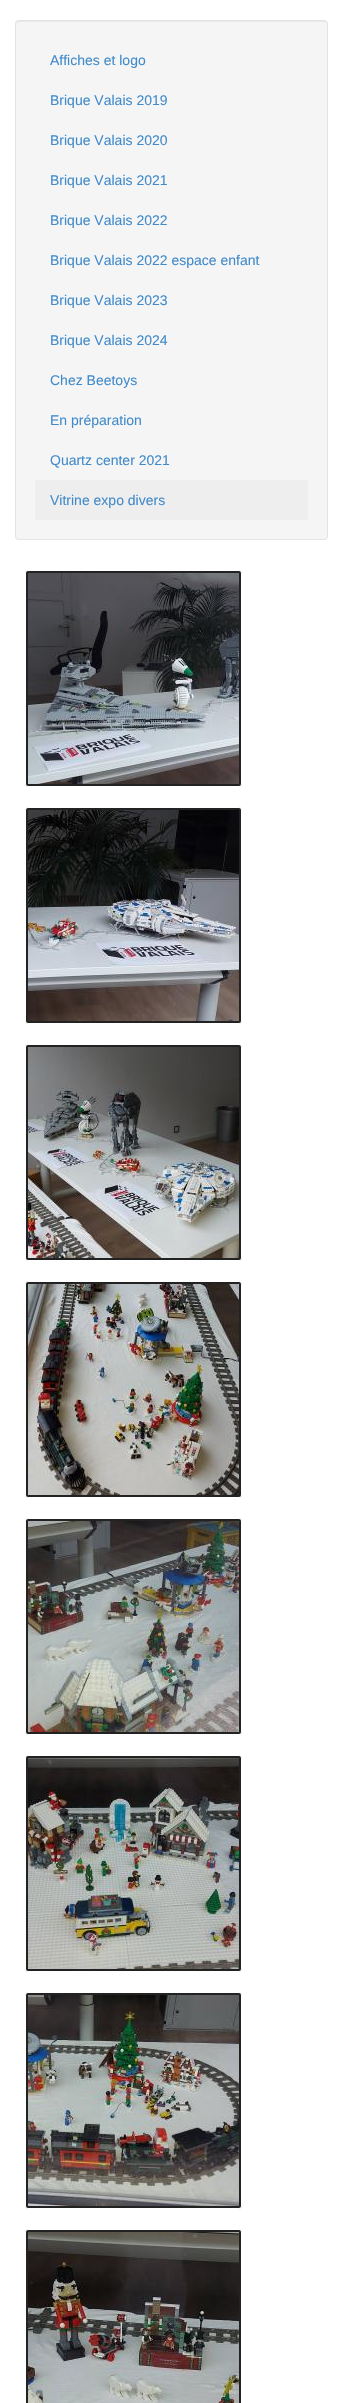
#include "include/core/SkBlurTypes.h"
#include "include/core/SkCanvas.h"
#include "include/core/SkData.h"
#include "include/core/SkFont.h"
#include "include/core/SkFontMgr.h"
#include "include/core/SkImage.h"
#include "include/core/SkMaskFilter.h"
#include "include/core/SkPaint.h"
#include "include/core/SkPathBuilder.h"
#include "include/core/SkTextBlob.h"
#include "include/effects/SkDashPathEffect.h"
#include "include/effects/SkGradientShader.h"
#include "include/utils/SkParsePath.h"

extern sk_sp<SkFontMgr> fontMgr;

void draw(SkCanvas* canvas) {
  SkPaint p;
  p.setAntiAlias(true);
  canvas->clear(SK_ColorWHITE);
  p.setColor(SkColorSetRGB(245, 245, 245));
  canvas->drawRoundRect(SkRect::MakeLTRB(15, 20, 328, 540), 4, 4, p);
  p.setColor(SkColorSetRGB(233, 233, 233));
  canvas->drawPath(SkPathBuilder().moveTo(19, 22).lineTo(324, 22).cubicTo(326, 22, 327, 23, 327, 25).lineTo(326, 22).lineTo(325, 21).lineTo(19, 21).cubicTo(17, 21, 16, 23, 16, 25).cubicTo(16, 23, 17, 22, 19, 22).close().detach(), p);
  p.setStyle(SkPaint::kStroke_Style);
  p.setStrokeWidth(1);
  p.setColor(SkColorSetRGB(227, 227, 227));
  canvas->drawRoundRect(SkRect::MakeLTRB(15.5f, 20.5f, 327.5f, 539.5f), 3.5f, 3.5f, p);
  p.setStyle(SkPaint::kFill_Style);
  p.setColor(SkColorSetRGB(238, 238, 238));
  canvas->drawRoundRect(SkRect::MakeLTRB(35, 480, 308, 520), 3, 3, p);
  p.setColor(SkColorSetRGB(34, 34, 34));
  canvas->drawRoundRect(SkRect::MakeLTRB(25.5f, 570.5f, 241.5f, 786.5f), 2.5f, 2.5f, p);
  p.setStyle(SkPaint::kStroke_Style);
  p.setColor(SK_ColorWHITE);
  canvas->drawRoundRect(SkRect::MakeLTRB(25.5f, 570.5f, 241.5f, 786.5f), 2.5f, 2.5f, p);
  canvas->drawImageRect(SkImages::DeferredFromEncodedData(SkData::MakeFromFileName("images/1.png")), SkRect::MakeLTRB(28, 573, 239, 784), SkSamplingOptions());
  p.setStyle(SkPaint::kFill_Style);
  p.setColor(SkColorSetRGB(34, 34, 34));
  canvas->drawRoundRect(SkRect::MakeLTRB(25.5f, 807.5f, 241.5f, 1023.5f), 2.5f, 2.5f, p);
  p.setStyle(SkPaint::kStroke_Style);
  p.setColor(SK_ColorWHITE);
  canvas->drawRoundRect(SkRect::MakeLTRB(25.5f, 807.5f, 241.5f, 1023.5f), 2.5f, 2.5f, p);
  canvas->drawImageRect(SkImages::DeferredFromEncodedData(SkData::MakeFromFileName("images/2.png")), SkRect::MakeLTRB(28, 810, 239, 1021), SkSamplingOptions());
  p.setStyle(SkPaint::kFill_Style);
  p.setColor(SkColorSetRGB(34, 34, 34));
  canvas->drawRoundRect(SkRect::MakeLTRB(25.5f, 1044.5f, 241.5f, 1260.5f), 2.5f, 2.5f, p);
  p.setStyle(SkPaint::kStroke_Style);
  p.setColor(SK_ColorWHITE);
  canvas->drawRoundRect(SkRect::MakeLTRB(25.5f, 1044.5f, 241.5f, 1260.5f), 2.5f, 2.5f, p);
  canvas->drawImageRect(SkImages::DeferredFromEncodedData(SkData::MakeFromFileName("images/3.png")), SkRect::MakeLTRB(28, 1047, 239, 1258), SkSamplingOptions());
  p.setStyle(SkPaint::kFill_Style);
  p.setColor(SkColorSetRGB(34, 34, 34));
  canvas->drawRoundRect(SkRect::MakeLTRB(25.5f, 1281.5f, 241.5f, 1497.5f), 2.5f, 2.5f, p);
  p.setStyle(SkPaint::kStroke_Style);
  p.setColor(SK_ColorWHITE);
  canvas->drawRoundRect(SkRect::MakeLTRB(25.5f, 1281.5f, 241.5f, 1497.5f), 2.5f, 2.5f, p);
  canvas->drawImageRect(SkImages::DeferredFromEncodedData(SkData::MakeFromFileName("images/4.png")), SkRect::MakeLTRB(28, 1284, 239, 1495), SkSamplingOptions());
  p.setStyle(SkPaint::kFill_Style);
  p.setColor(SkColorSetRGB(34, 34, 34));
  canvas->drawRoundRect(SkRect::MakeLTRB(25.5f, 1518.5f, 241.5f, 1734.5f), 2.5f, 2.5f, p);
  p.setStyle(SkPaint::kStroke_Style);
  p.setColor(SK_ColorWHITE);
  canvas->drawRoundRect(SkRect::MakeLTRB(25.5f, 1518.5f, 241.5f, 1734.5f), 2.5f, 2.5f, p);
  canvas->drawImageRect(SkImages::DeferredFromEncodedData(SkData::MakeFromFileName("images/5.png")), SkRect::MakeLTRB(28, 1521, 239, 1732), SkSamplingOptions());
  p.setStyle(SkPaint::kFill_Style);
  p.setColor(SkColorSetRGB(34, 34, 34));
  canvas->drawRoundRect(SkRect::MakeLTRB(25.5f, 1755.5f, 241.5f, 1971.5f), 2.5f, 2.5f, p);
  p.setStyle(SkPaint::kStroke_Style);
  p.setColor(SK_ColorWHITE);
  canvas->drawRoundRect(SkRect::MakeLTRB(25.5f, 1755.5f, 241.5f, 1971.5f), 2.5f, 2.5f, p);
  canvas->drawImageRect(SkImages::DeferredFromEncodedData(SkData::MakeFromFileName("images/6.png")), SkRect::MakeLTRB(28, 1758, 239, 1969), SkSamplingOptions());
  p.setStyle(SkPaint::kFill_Style);
  p.setColor(SkColorSetRGB(34, 34, 34));
  canvas->drawRoundRect(SkRect::MakeLTRB(25.5f, 1992.5f, 241.5f, 2208.5f), 2.5f, 2.5f, p);
  p.setStyle(SkPaint::kStroke_Style);
  p.setColor(SK_ColorWHITE);
  canvas->drawRoundRect(SkRect::MakeLTRB(25.5f, 1992.5f, 241.5f, 2208.5f), 2.5f, 2.5f, p);
  canvas->drawImageRect(SkImages::DeferredFromEncodedData(SkData::MakeFromFileName("images/7.png")), SkRect::MakeLTRB(28, 1995, 239, 2206), SkSamplingOptions());
  p.setStyle(SkPaint::kFill_Style);
  p.setColor(SkColorSetRGB(34, 34, 34));
  canvas->drawRoundRect(SkRect::MakeLTRB(25.5f, 2229.5f, 241.5f, 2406.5f), 2.5f, 2.5f, p);
  p.setStyle(SkPaint::kStroke_Style);
  p.setColor(SK_ColorWHITE);
  canvas->drawRoundRect(SkRect::MakeLTRB(25.5f, 2229.5f, 241.5f, 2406.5f), 2.5f, 2.5f, p);
  canvas->drawImageRect(SkImages::DeferredFromEncodedData(SkData::MakeFromFileName("images/8.png")), SkRect::MakeLTRB(28, 2232, 239, 2403), SkSamplingOptions());
  SkFont font1(fontMgr->matchFamilyStyle("Liberation Sans", SkFontStyle::Normal()), 14);
  font1.setSubpixel(true);
  p.setStyle(SkPaint::kFill_Style);
  p.setColor(SkColorSetRGB(66, 139, 202));
  canvas->drawString("Affiches et logo", 50, 65, font1, p);
  canvas->drawString("Brique Valais 2019", 50, 105, font1, p);
  canvas->drawString("Brique Valais 2020", 50, 145, font1, p);
  canvas->drawString("Brique Valais 2021", 50, 185, font1, p);
  canvas->drawString("Brique Valais 2022", 50, 225, font1, p);
  canvas->drawString("Brique Valais 2022 espace enfant", 50, 265, font1, p);
  canvas->drawString("Brique Valais 2023", 50, 305, font1, p);
  canvas->drawString("Brique Valais 2024", 50, 345, font1, p);
  canvas->drawString("Chez Beetoys", 50, 385, font1, p);
  canvas->drawString("En préparation", 50, 425, font1, p);
  canvas->drawString("Quartz center 2021", 50, 465, font1, p);
  canvas->drawString("Vitrine expo divers", 50, 505, font1, p);
}
